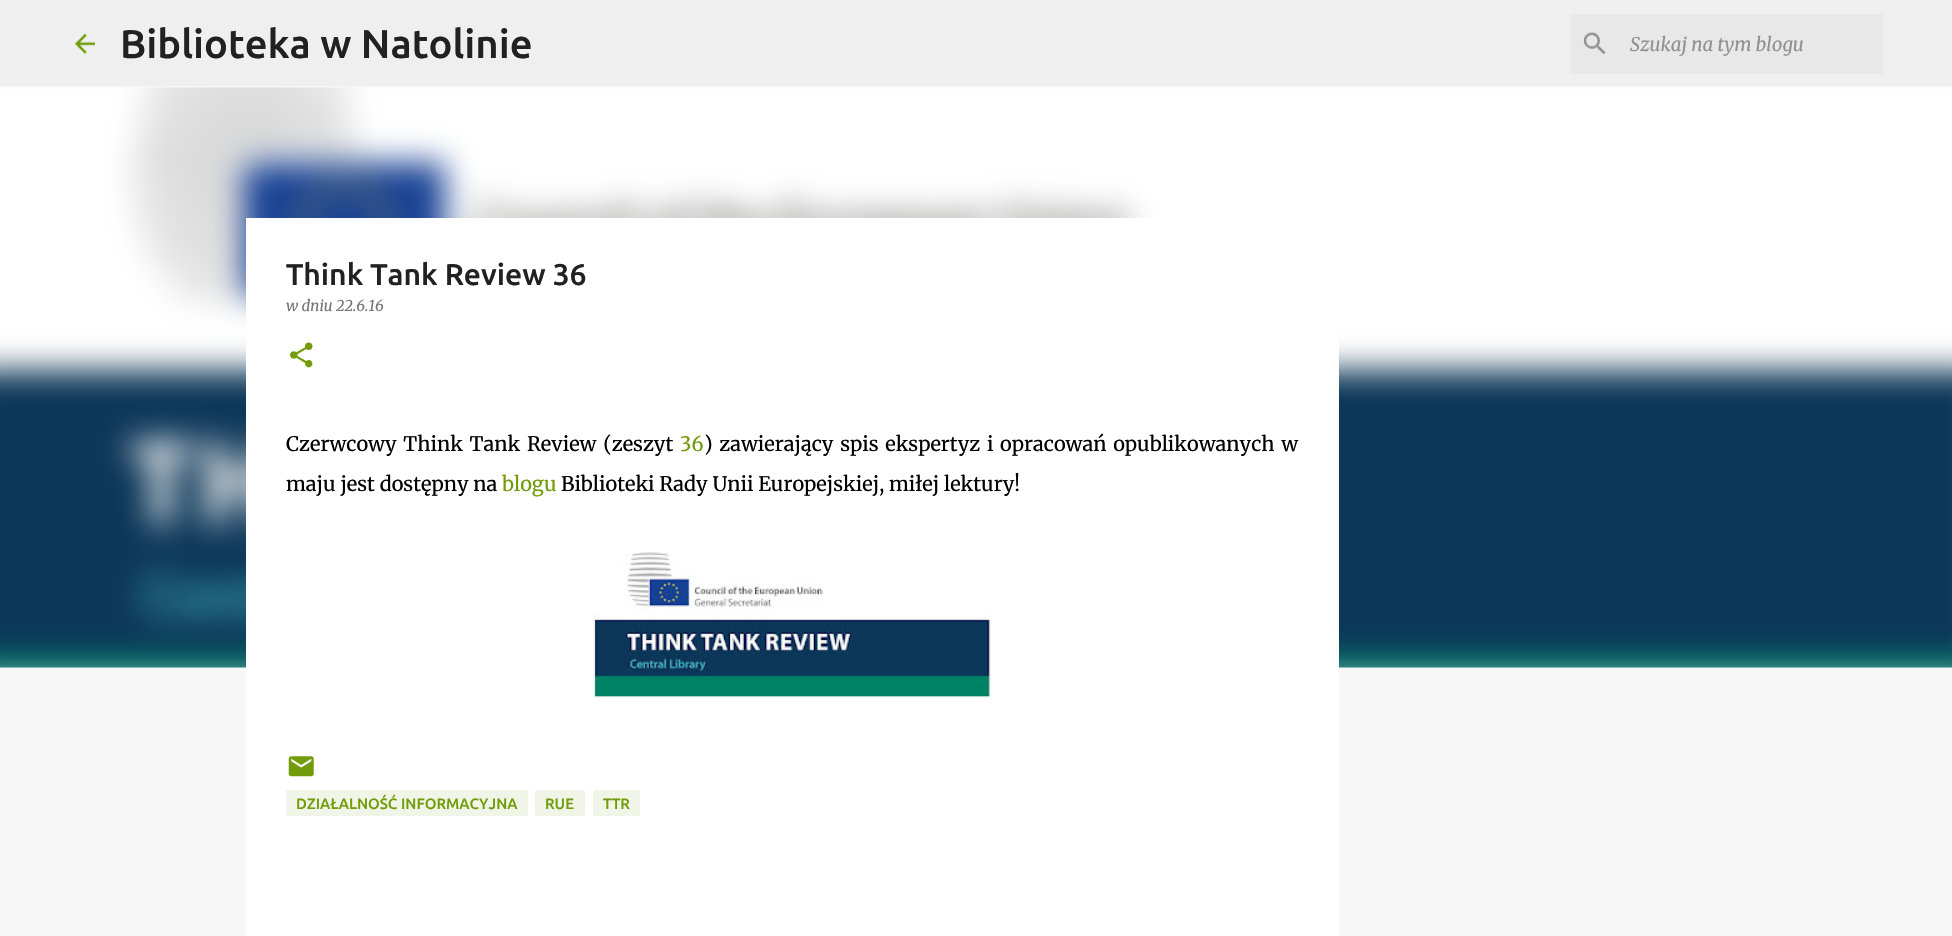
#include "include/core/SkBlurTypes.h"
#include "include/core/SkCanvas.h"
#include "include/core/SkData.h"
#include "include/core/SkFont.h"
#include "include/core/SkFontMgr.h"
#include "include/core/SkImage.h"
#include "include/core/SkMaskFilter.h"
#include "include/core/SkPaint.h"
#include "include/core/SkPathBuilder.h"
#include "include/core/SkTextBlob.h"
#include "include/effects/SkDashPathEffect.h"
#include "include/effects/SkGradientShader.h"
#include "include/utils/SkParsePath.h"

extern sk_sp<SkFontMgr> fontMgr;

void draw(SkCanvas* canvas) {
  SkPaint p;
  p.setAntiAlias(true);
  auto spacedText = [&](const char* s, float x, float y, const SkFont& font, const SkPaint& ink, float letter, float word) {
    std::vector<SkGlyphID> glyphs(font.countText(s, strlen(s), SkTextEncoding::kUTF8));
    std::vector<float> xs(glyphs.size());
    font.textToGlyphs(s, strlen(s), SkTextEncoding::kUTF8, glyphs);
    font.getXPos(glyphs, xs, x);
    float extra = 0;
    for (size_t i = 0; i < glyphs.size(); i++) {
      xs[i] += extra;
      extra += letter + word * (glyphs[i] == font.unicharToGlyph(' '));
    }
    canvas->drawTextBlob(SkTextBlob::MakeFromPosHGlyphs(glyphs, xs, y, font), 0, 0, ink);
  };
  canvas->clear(SkColorSetRGB(247, 247, 247));
  p.setColor(SkColorSetRGB(239, 239, 239));
  canvas->drawRect(SkRect::MakeLTRB(0, 0, 1952, 86), p);
  canvas->drawImageRect(SkImages::DeferredFromEncodedData(SkData::MakeFromFileName("images/1.png")), SkRect::MakeLTRB(75, 33, 95, 54), SkSamplingOptions());
  p.setColor(SkColorSetRGB(232, 232, 232));
  canvas->drawRect(SkRect::MakeLTRB(1570, 14, 1883, 74), p);
  canvas->drawImageRect(SkImages::DeferredFromEncodedData(SkData::MakeFromFileName("images/2.png")), SkRect::MakeLTRB(1583, 32, 1606, 55), SkSamplingOptions());
  canvas->drawImageRect(SkImages::DeferredFromEncodedData(SkData::MakeFromFileName("images/6.png")), SkRect::MakeLTRB(0, 87, 1952, 668), SkSamplingOptions());
  p.setColor(SK_ColorWHITE);
  canvas->drawRect(SkRect::MakeLTRB(246, 218, 1339, 936), p);
  canvas->drawImageRect(SkImages::DeferredFromEncodedData(SkData::MakeFromFileName("images/3.png")), SkRect::MakeLTRB(290, 342, 313, 368), SkSamplingOptions());
  canvas->drawImageRect(SkImages::DeferredFromEncodedData(SkData::MakeFromFileName("images/4.png")), SkRect::MakeLTRB(592, 552, 993, 699), SkSamplingOptions());
  canvas->drawImageRect(SkImages::DeferredFromEncodedData(SkData::MakeFromFileName("images/5.png")), SkRect::MakeLTRB(288, 756, 314, 777), SkSamplingOptions());
  p.setColor(SkColorSetRGB(241, 245, 231));
  canvas->drawRoundRect(SkRect::MakeLTRB(286, 790, 528, 816), 2.5f, 2.5f, p);
  canvas->drawRoundRect(SkRect::MakeLTRB(535, 790, 585, 816), 2.5f, 2.5f, p);
  canvas->drawRoundRect(SkRect::MakeLTRB(593, 790, 640, 816), 2.5f, 2.5f, p);
  SkFont font1(fontMgr->matchFamilyStyle("Ubuntu", SkFontStyle(500, SkFontStyle::kNormal_Width, SkFontStyle::kUpright_Slant)), 40);
  font1.setSubpixel(true);
  p.setColor(SkColorSetRGB(33, 33, 33));
  canvas->drawString("Biblioteka w Natolinie", 120, 58, font1, p);
  SkFont font2(fontMgr->matchFamilyStyle("Merriweather", SkFontStyle::Italic()), 18.75f);
  font2.setSubpixel(true);
  p.setColor(SkColorSetRGB(144, 144, 144));
  canvas->drawString("Szukaj na tym blogu", 1630, 51, font2, p);
  SkFont font3(fontMgr->matchFamilyStyle("Ubuntu", SkFontStyle(500, SkFontStyle::kNormal_Width, SkFontStyle::kUpright_Slant)), 30);
  font3.setSubpixel(true);
  p.setColor(SkColorSetRGB(33, 33, 33));
  canvas->drawString("Think Tank Review 36", 286, 285, font3, p);
  SkFont font4(fontMgr->matchFamilyStyle("Merriweather", SkFontStyle::Italic()), 15);
  font4.setSubpixel(true);
  p.setColor(SkColorSetRGB(117, 117, 117));
  canvas->drawString("w dniu 22.6.16", 286, 311, font4, p);
  SkFont font5(fontMgr->matchFamilyStyle("Merriweather", SkFontStyle(300, SkFontStyle::kNormal_Width, SkFontStyle::kUpright_Slant)), 20);
  font5.setSubpixel(true);
  p.setColor(SK_ColorBLACK);
  spacedText("Czerwcowy Think Tank Review (zeszyt", 286, 451, font5, p, 0, 2);
  p.setColor(SkColorSetRGB(114, 156, 11));
  canvas->drawString("36", 680, 451, font5, p);
  p.setColor(SK_ColorBLACK);
  spacedText(") zawierający spis ekspertyz i opracowań opublikowanych w", 704, 451, font5, p, 0, 2);
  canvas->drawString("maju jest dostępny na", 286, 491, font5, p);
  p.setColor(SkColorSetRGB(114, 156, 11));
  canvas->drawString("blogu", 502, 491, font5, p);
  p.setColor(SK_ColorBLACK);
  canvas->drawString("Biblioteki Rady Unii Europejskiej, miłej lektury!", 561, 491, font5, p);
  SkFont font6(fontMgr->matchFamilyStyle("Ubuntu", SkFontStyle(500, SkFontStyle::kNormal_Width, SkFontStyle::kUpright_Slant)), 15);
  font6.setSubpixel(true);
  p.setColor(SkColorSetRGB(114, 156, 11));
  canvas->drawString("DZIAŁALNOŚĆ INFORMACYJNA", 296, 809, font6, p);
  canvas->drawString("RUE", 545, 809, font6, p);
  canvas->drawString("TTR", 603, 809, font6, p);
}
